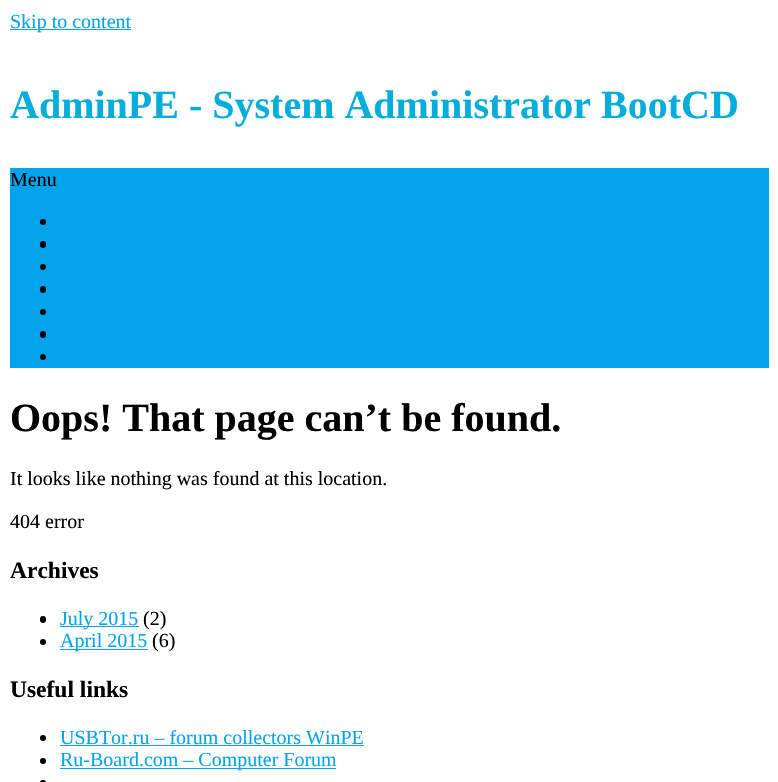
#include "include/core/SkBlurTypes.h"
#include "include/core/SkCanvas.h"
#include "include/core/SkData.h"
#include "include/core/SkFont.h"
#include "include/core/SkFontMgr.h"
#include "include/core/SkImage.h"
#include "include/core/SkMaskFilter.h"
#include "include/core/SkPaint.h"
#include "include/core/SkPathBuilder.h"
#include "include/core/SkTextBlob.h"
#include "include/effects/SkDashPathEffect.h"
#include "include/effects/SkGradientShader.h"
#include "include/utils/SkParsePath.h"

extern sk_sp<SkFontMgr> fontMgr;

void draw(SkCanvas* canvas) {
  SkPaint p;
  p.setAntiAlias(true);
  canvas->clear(SK_ColorWHITE);
  p.setColor(SkColorSetRGB(4, 163, 237));
  canvas->drawRect(SkRect::MakeLTRB(10, 29, 131, 30), p);
  canvas->drawRect(SkRect::MakeLTRB(10, 168, 769, 368), p);
  p.setColor(SK_ColorBLACK);
  canvas->drawCircle(43, 222, 3, p);
  canvas->drawRoundRect(SkRect::MakeLTRB(40, 241, 46, 248), 3, 3, p);
  canvas->drawCircle(43, 267, 3, p);
  canvas->drawRoundRect(SkRect::MakeLTRB(40, 286, 46, 293), 3, 3, p);
  canvas->drawCircle(43, 312, 3, p);
  canvas->drawRoundRect(SkRect::MakeLTRB(40, 331, 46, 338), 3, 3, p);
  canvas->drawCircle(43, 357, 3, p);
  canvas->drawRoundRect(SkRect::MakeLTRB(40, 616, 46, 623), 3, 3, p);
  p.setColor(SkColorSetRGB(4, 163, 237));
  canvas->drawRect(SkRect::MakeLTRB(60, 626, 139, 627), p);
  p.setColor(SK_ColorBLACK);
  canvas->drawCircle(43, 642, 3, p);
  p.setColor(SkColorSetRGB(4, 163, 237));
  canvas->drawRect(SkRect::MakeLTRB(60, 649, 148, 650), p);
  p.setColor(SK_ColorBLACK);
  canvas->drawCircle(43, 738, 3, p);
  p.setColor(SkColorSetRGB(4, 163, 237));
  canvas->drawRect(SkRect::MakeLTRB(60, 745, 364, 746), p);
  p.setColor(SK_ColorBLACK);
  canvas->drawCircle(43, 761, 3, p);
  p.setColor(SkColorSetRGB(4, 163, 237));
  canvas->drawRect(SkRect::MakeLTRB(60, 768, 336, 769), p);
  p.setColor(SK_ColorBLACK);
  canvas->drawRoundRect(SkRect::MakeLTRB(40, 780, 46, 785), 3, 3, p);
  SkFont font1(fontMgr->matchFamilyStyle("Liberation Serif", SkFontStyle::Normal()), 20);
  font1.setSubpixel(true);
  p.setColor(SkColorSetRGB(4, 163, 237));
  canvas->drawString("Skip to content", 10, 28, font1, p);
  SkFont font2(fontMgr->matchFamilyStyle("Liberation Serif", SkFontStyle::Bold()), 40);
  font2.setSubpixel(true);
  p.setColor(SkColorSetRGB(4, 173, 218));
  canvas->drawString("AdminPE - System Administrator BootCD", 10, 118, font2, p);
  p.setColor(SK_ColorBLACK);
  canvas->drawString("Menu", 10, 186, font1, p);
  canvas->drawString("Oops! That page can’t be found.", 10, 431, font2, p);
  canvas->drawString("It looks like nothing was found at this location.", 10, 485, font1, p);
  canvas->drawString("404 error", 10, 528, font1, p);
  SkFont font3(fontMgr->matchFamilyStyle("Liberation Serif", SkFontStyle::Bold()), 23.5f);
  font3.setSubpixel(true);
  canvas->drawString("Archives", 10, 578, font3, p);
  p.setColor(SkColorSetRGB(4, 163, 237));
  canvas->drawString("July 2015", 60, 625, font1, p);
  p.setColor(SK_ColorBLACK);
  canvas->drawString("(2)", 143, 625, font1, p);
  p.setColor(SkColorSetRGB(4, 163, 237));
  canvas->drawString("April 2015", 60, 647, font1, p);
  p.setColor(SK_ColorBLACK);
  canvas->drawString("(6)", 152, 647, font1, p);
  canvas->drawString("Useful links", 10, 697, font3, p);
  p.setColor(SkColorSetRGB(4, 163, 237));
  canvas->drawString("USBTor.ru – forum collectors WinPE", 60, 744, font1, p);
  canvas->drawString("Ru-Board.com – Computer Forum", 60, 766, font1, p);
}
